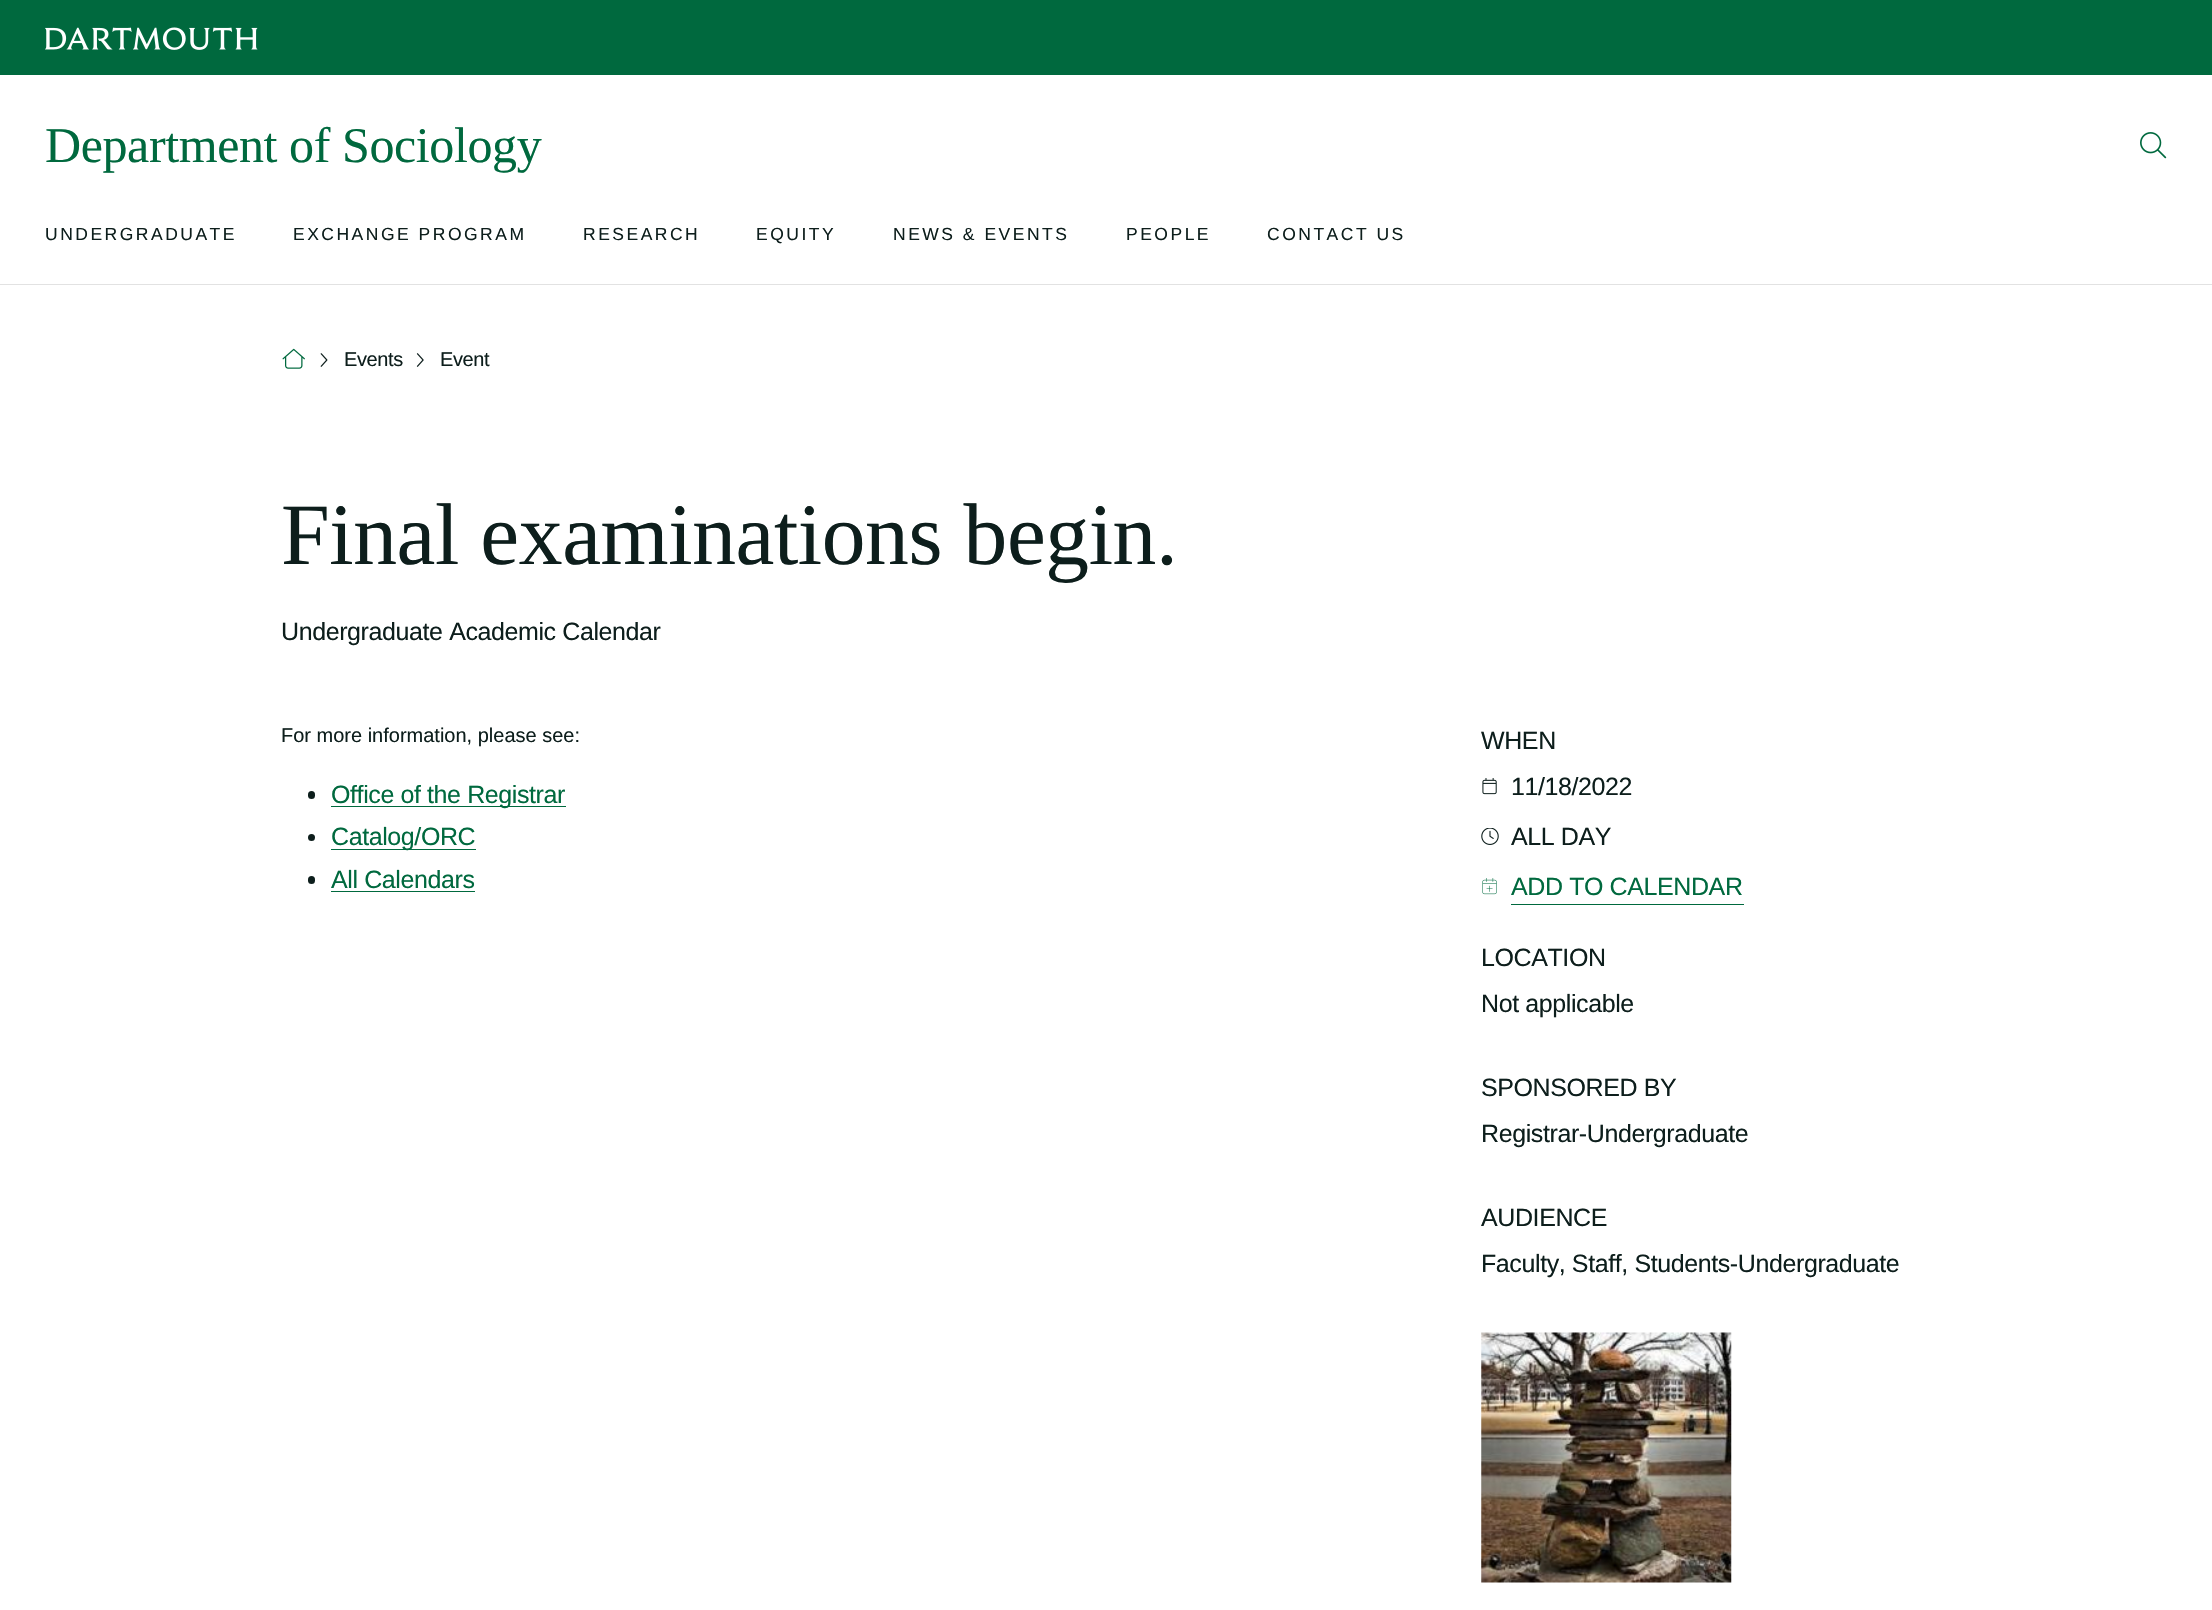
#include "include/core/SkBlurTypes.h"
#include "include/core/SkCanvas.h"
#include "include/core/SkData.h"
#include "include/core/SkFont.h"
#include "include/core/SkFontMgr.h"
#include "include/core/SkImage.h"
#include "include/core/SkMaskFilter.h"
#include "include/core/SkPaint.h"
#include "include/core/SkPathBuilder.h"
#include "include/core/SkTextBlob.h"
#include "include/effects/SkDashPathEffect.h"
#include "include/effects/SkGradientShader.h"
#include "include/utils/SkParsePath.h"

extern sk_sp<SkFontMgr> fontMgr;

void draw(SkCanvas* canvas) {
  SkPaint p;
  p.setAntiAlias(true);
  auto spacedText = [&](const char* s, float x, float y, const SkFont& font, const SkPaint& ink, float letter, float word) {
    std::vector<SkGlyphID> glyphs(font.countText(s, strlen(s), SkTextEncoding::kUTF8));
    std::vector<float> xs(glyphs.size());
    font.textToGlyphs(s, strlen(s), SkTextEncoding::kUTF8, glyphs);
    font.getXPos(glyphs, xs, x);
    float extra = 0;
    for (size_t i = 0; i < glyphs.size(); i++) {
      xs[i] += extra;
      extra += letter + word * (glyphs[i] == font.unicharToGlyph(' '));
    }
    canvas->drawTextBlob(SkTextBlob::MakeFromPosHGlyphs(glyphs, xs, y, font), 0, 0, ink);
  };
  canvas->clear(SK_ColorWHITE);
  p.setColor(SkColorSetRGB(226, 226, 226));
  canvas->drawRect(SkRect::MakeLTRB(0, 284, 2212, 285), p);
  p.setColor(SkColorSetRGB(0, 105, 62));
  canvas->drawRect(SkRect::MakeLTRB(0, 0, 2212, 75), p);
  canvas->drawImageRect(SkImages::DeferredFromEncodedData(SkData::MakeFromFileName("images/1.png")), SkRect::MakeLTRB(45, 27, 258, 50), SkSamplingOptions());
  canvas->drawImageRect(SkImages::DeferredFromEncodedData(SkData::MakeFromFileName("images/2.png")), SkRect::MakeLTRB(2140, 132, 2167, 159), SkSamplingOptions());
  canvas->drawImageRect(SkImages::DeferredFromEncodedData(SkData::MakeFromFileName("images/3.png")), SkRect::MakeLTRB(282, 348, 305, 369), SkSamplingOptions());
  canvas->drawImageRect(SkImages::DeferredFromEncodedData(SkData::MakeFromFileName("images/4.png")), SkRect::MakeLTRB(320, 353, 328, 367), SkSamplingOptions());
  canvas->drawImageRect(SkImages::DeferredFromEncodedData(SkData::MakeFromFileName("images/5.png")), SkRect::MakeLTRB(416, 353, 424, 367), SkSamplingOptions());
  p.setColor(SkColorSetRGB(13, 30, 28));
  canvas->drawRoundRect(SkRect::MakeLTRB(308, 791, 315, 799), 3.5f, 3.5f, p);
  p.setColor(SkColorSetRGB(0, 105, 62));
  canvas->drawRect(SkRect::MakeLTRB(331, 806, 566, 807), p);
  p.setColor(SkColorSetRGB(13, 30, 28));
  canvas->drawCircle(311.5f, 837.5f, 3.5f, p);
  p.setColor(SkColorSetRGB(0, 105, 62));
  canvas->drawRect(SkRect::MakeLTRB(331, 849, 476, 850), p);
  p.setColor(SkColorSetRGB(13, 30, 28));
  canvas->drawRoundRect(SkRect::MakeLTRB(308, 876, 315, 884), 3.5f, 3.5f, p);
  p.setColor(SkColorSetRGB(0, 105, 62));
  canvas->drawRect(SkRect::MakeLTRB(331, 891, 475, 892), p);
  canvas->drawImageRect(SkImages::DeferredFromEncodedData(SkData::MakeFromFileName("images/6.png")), SkRect::MakeLTRB(1482, 778, 1497, 795), SkSamplingOptions());
  canvas->drawImageRect(SkImages::DeferredFromEncodedData(SkData::MakeFromFileName("images/7.png")), SkRect::MakeLTRB(1481, 828, 1499, 845), SkSamplingOptions());
  canvas->drawImageRect(SkImages::DeferredFromEncodedData(SkData::MakeFromFileName("images/8.png")), SkRect::MakeLTRB(1482, 878, 1497, 895), SkSamplingOptions());
  canvas->drawRect(SkRect::MakeLTRB(1511, 904, 1744, 905), p);
  canvas->drawImageRect(SkImages::DeferredFromEncodedData(SkData::MakeFromFileName("images/9.png")), SkRect::MakeLTRB(1481, 1332, 1732, 1583), SkSamplingOptions());
  SkFont font1(fontMgr->matchFamilyStyle("Liberation Serif", SkFontStyle::Normal()), 50);
  font1.setSubpixel(true);
  spacedText("Department of Sociology", 45, 162, font1, p, -0.4f, 0);
  SkFont font2(fontMgr->matchFamilyStyle("Liberation Sans", SkFontStyle::Normal()), 17.5f);
  font2.setSubpixel(true);
  p.setColor(SkColorSetRGB(13, 30, 28));
  spacedText("UNDERGRADUATE", 45, 240, font2, p, 2.5f, 0);
  spacedText("EXCHANGE PROGRAM", 293, 240, font2, p, 2.5f, 0);
  spacedText("RESEARCH", 583, 240, font2, p, 2.5f, 0);
  spacedText("EQUITY", 756, 240, font2, p, 2.5f, 0);
  spacedText("NEWS & EVENTS", 893, 240, font2, p, 2.5f, 0);
  spacedText("PEOPLE", 1126, 240, font2, p, 2.5f, 0);
  spacedText("CONTACT US", 1267, 240, font2, p, 2.5f, 0);
  SkFont font3(fontMgr->matchFamilyStyle("Liberation Sans", SkFontStyle::Normal()), 20);
  font3.setSubpixel(true);
  spacedText("Events", 344, 366, font3, p, -0.4f, 0);
  spacedText("Event", 440, 366, font3, p, -0.4f, 0);
  SkFont font4(fontMgr->matchFamilyStyle("Liberation Serif", SkFontStyle::Normal()), 87.5f);
  font4.setSubpixel(true);
  spacedText("Final examinations begin.", 281, 564, font4, p, -0.4f, 0);
  SkFont font5(fontMgr->matchFamilyStyle("Liberation Sans", SkFontStyle::Normal()), 25);
  font5.setSubpixel(true);
  spacedText("Undergraduate Academic Calendar", 281, 640, font5, p, -0.4f, 0);
  canvas->drawString("For more information, please see:", 281, 742, font3, p);
  p.setColor(SkColorSetRGB(0, 105, 62));
  spacedText("Office of the Registrar", 331, 803, font5, p, -0.4f, 0);
  spacedText("Catalog/ORC", 331, 845, font5, p, -0.4f, 0);
  spacedText("All Calendars", 331, 888, font5, p, -0.4f, 0);
  p.setColor(SkColorSetRGB(13, 30, 28));
  spacedText("WHEN", 1481, 749, font5, p, -0.4f, 0);
  spacedText("11/18/2022", 1511, 795, font5, p, -0.4f, 0);
  spacedText("ALL DAY", 1511, 845, font5, p, -0.4f, 0);
  p.setColor(SkColorSetRGB(0, 105, 62));
  spacedText("ADD TO CALENDAR", 1511, 895, font5, p, -0.4f, 0);
  p.setColor(SkColorSetRGB(13, 30, 28));
  spacedText("LOCATION", 1481, 966, font5, p, -0.4f, 0);
  spacedText("Not applicable", 1481, 1012, font5, p, -0.4f, 0);
  spacedText("SPONSORED BY", 1481, 1096, font5, p, -0.4f, 0);
  spacedText("Registrar-Undergraduate", 1481, 1142, font5, p, -0.4f, 0);
  spacedText("AUDIENCE", 1481, 1226, font5, p, -0.4f, 0);
  spacedText("Faculty, Staff, Students-Undergraduate", 1481, 1272, font5, p, -0.4f, 0);
}
